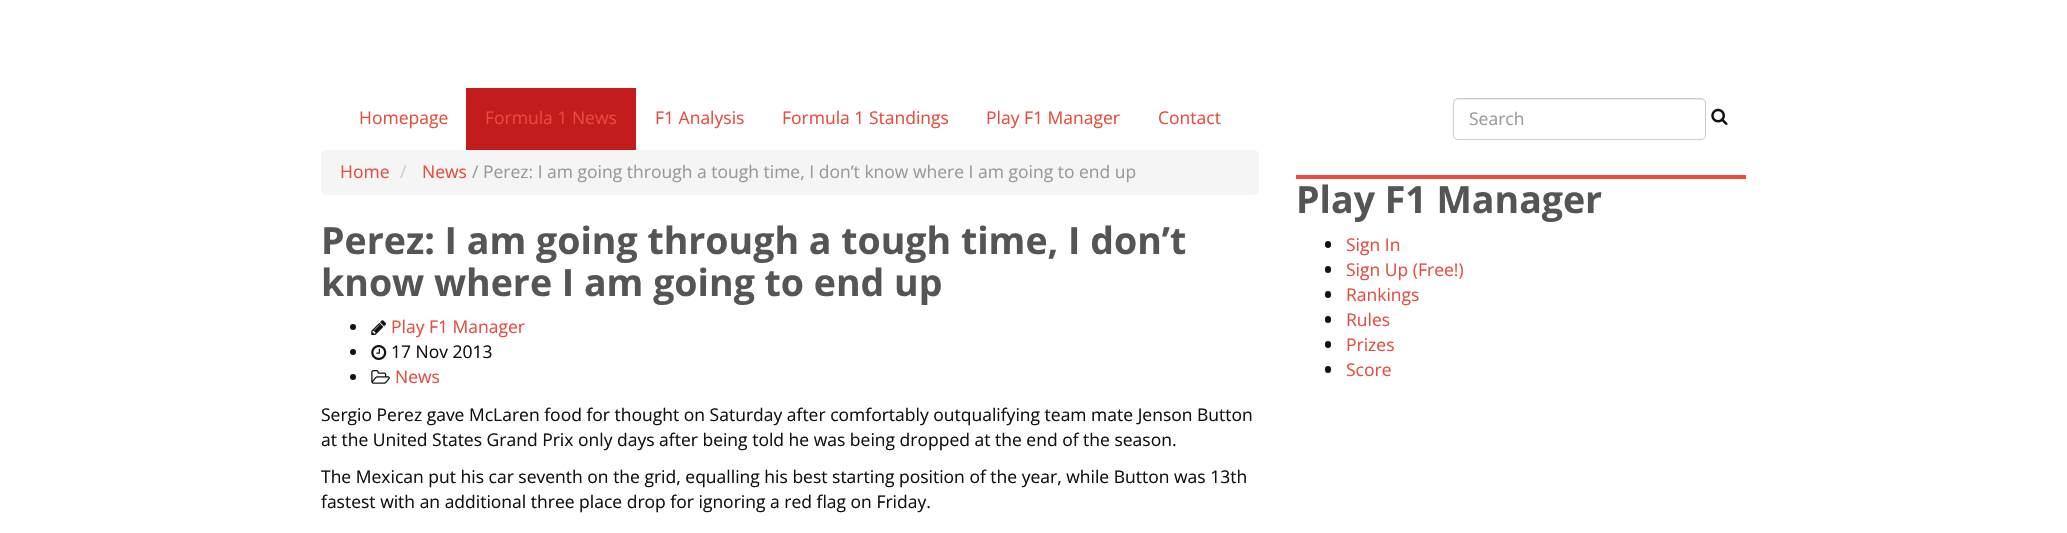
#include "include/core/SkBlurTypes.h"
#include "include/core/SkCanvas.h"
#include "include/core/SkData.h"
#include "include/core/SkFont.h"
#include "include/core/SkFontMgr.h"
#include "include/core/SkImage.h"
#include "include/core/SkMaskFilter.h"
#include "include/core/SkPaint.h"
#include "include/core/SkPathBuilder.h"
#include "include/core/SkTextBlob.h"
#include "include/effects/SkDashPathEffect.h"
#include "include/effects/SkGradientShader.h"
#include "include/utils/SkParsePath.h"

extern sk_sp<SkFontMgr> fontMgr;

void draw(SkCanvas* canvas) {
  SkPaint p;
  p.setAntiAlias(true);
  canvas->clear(SK_ColorWHITE);
  p.setColor(SkColorSetRGB(194, 28, 28));
  canvas->drawRect(SkRect::MakeLTRB(466, 88, 636, 150), p);
  p.setColor(SkColorSetRGB(236, 236, 236));
  canvas->drawPath(SkPathBuilder().moveTo(1458, 100).lineTo(1701, 100).cubicTo(1703, 100, 1705, 102, 1705, 104).lineTo(1705, 103).cubicTo(1705, 101, 1703, 99, 1701, 99).lineTo(1458, 99).cubicTo(1456, 99, 1454, 101, 1454, 103).lineTo(1454, 104).cubicTo(1454, 102, 1455, 100, 1458, 100).close().detach(), p);
  p.setStyle(SkPaint::kStroke_Style);
  p.setStrokeWidth(1);
  p.setColor(SkColorSetRGB(204, 204, 204));
  canvas->drawRoundRect(SkRect::MakeLTRB(1453.5f, 98.5f, 1705.5f, 139.5f), 4.5f, 4.5f, p);
  canvas->drawImageRect(SkImages::DeferredFromEncodedData(SkData::MakeFromFileName("images/1.png")), SkRect::MakeLTRB(1711, 108, 1728, 125), SkSamplingOptions());
  p.setStyle(SkPaint::kFill_Style);
  p.setColor(SkColorSetRGB(245, 245, 245));
  canvas->drawRoundRect(SkRect::MakeLTRB(321, 150, 1259, 195), 5, 5, p);
  p.setColor(SkColorSetRGB(17, 17, 17));
  canvas->drawCircle(353, 327, 3, p);
  canvas->drawImageRect(SkImages::DeferredFromEncodedData(SkData::MakeFromFileName("images/2.png")), SkRect::MakeLTRB(371, 320, 386, 335), SkSamplingOptions());
  canvas->drawCircle(353, 352, 3, p);
  canvas->drawImageRect(SkImages::DeferredFromEncodedData(SkData::MakeFromFileName("images/3.png")), SkRect::MakeLTRB(371, 345, 387, 360), SkSamplingOptions());
  canvas->drawCircle(353, 377, 3, p);
  canvas->drawImageRect(SkImages::DeferredFromEncodedData(SkData::MakeFromFileName("images/4.png")), SkRect::MakeLTRB(371, 370, 390, 384), SkSamplingOptions());
  p.setColor(SkColorSetRGB(231, 76, 60));
  canvas->drawRect(SkRect::MakeLTRB(1296, 175, 1746, 179), p);
  p.setColor(SkColorSetRGB(17, 17, 17));
  canvas->drawRoundRect(SkRect::MakeLTRB(1325, 241, 1331, 248), 3, 3, p);
  canvas->drawRoundRect(SkRect::MakeLTRB(1325, 266, 1331, 273), 3, 3, p);
  canvas->drawRoundRect(SkRect::MakeLTRB(1325, 291, 1331, 298), 3, 3, p);
  canvas->drawRoundRect(SkRect::MakeLTRB(1325, 316, 1331, 323), 3, 3, p);
  canvas->drawRoundRect(SkRect::MakeLTRB(1325, 341, 1331, 348), 3, 3, p);
  canvas->drawRoundRect(SkRect::MakeLTRB(1325, 366, 1331, 373), 3, 3, p);
  SkFont font1(fontMgr->matchFamilyStyle("Open Sans", SkFontStyle::Normal()), 17.5f);
  font1.setSubpixel(true);
  p.setColor(SkColorSetRGB(231, 76, 60));
  canvas->drawString("Homepage", 359, 124, font1, p);
  canvas->drawString("Formula 1 News", 485, 124, font1, p);
  canvas->drawString("F1 Analysis", 655, 124, font1, p);
  canvas->drawString("Formula 1 Standings", 782, 124, font1, p);
  canvas->drawString("Play F1 Manager", 986, 124, font1, p);
  canvas->drawString("Contact", 1158, 124, font1, p);
  p.setColor(SkColorSetRGB(153, 153, 153));
  canvas->drawString("Search", 1469, 125, font1, p);
  p.setColor(SkColorSetRGB(231, 76, 60));
  canvas->drawString("Home", 340, 178, font1, p);
  p.setColor(SkColorSetRGB(204, 204, 204));
  canvas->drawString("/", 400, 178, font1, p);
  p.setColor(SkColorSetRGB(231, 76, 60));
  canvas->drawString("News", 422, 178, font1, p);
  p.setColor(SkColorSetRGB(153, 153, 153));
  canvas->drawString("/ Perez: I am going through a tough time, I don’t know where I am going to end up", 472, 178, font1, p);
  SkFont font2(fontMgr->matchFamilyStyle("Open Sans", SkFontStyle::Bold()), 37.5f);
  font2.setSubpixel(true);
  p.setColor(SkColorSetRGB(85, 85, 85));
  canvas->drawString("Perez: I am going through a tough time, I don’t", 321, 254, font2, p);
  canvas->drawString("know where I am going to end up", 321, 296, font2, p);
  p.setColor(SkColorSetRGB(231, 76, 60));
  canvas->drawString("Play F1 Manager", 391, 333, font1, p);
  p.setColor(SkColorSetRGB(17, 17, 17));
  canvas->drawString("17 Nov 2013", 391, 358, font1, p);
  p.setColor(SkColorSetRGB(231, 76, 60));
  canvas->drawString("News", 395, 383, font1, p);
  p.setColor(SkColorSetRGB(17, 17, 17));
  canvas->drawString("Sergio Perez gave McLaren food for thought on Saturday after comfortably outqualifying team mate Jenson Button", 321, 421, font1, p);
  canvas->drawString("at the United States Grand Prix only days after being told he was being dropped at the end of the season.", 321, 446, font1, p);
  canvas->drawString("The Mexican put his car seventh on the grid, equalling his best starting position of the year, while Button was 13th", 321, 483, font1, p);
  canvas->drawString("fastest with an additional three place drop for ignoring a red flag on Friday.", 321, 508, font1, p);
  p.setColor(SkColorSetRGB(85, 85, 85));
  canvas->drawString("Play F1 Manager", 1296, 213, font2, p);
  p.setColor(SkColorSetRGB(231, 76, 60));
  canvas->drawString("Sign In", 1346, 251, font1, p);
  canvas->drawString("Sign Up (Free!)", 1346, 276, font1, p);
  canvas->drawString("Rankings", 1346, 301, font1, p);
  canvas->drawString("Rules", 1346, 326, font1, p);
  canvas->drawString("Prizes", 1346, 351, font1, p);
  canvas->drawString("Score", 1346, 376, font1, p);
}
